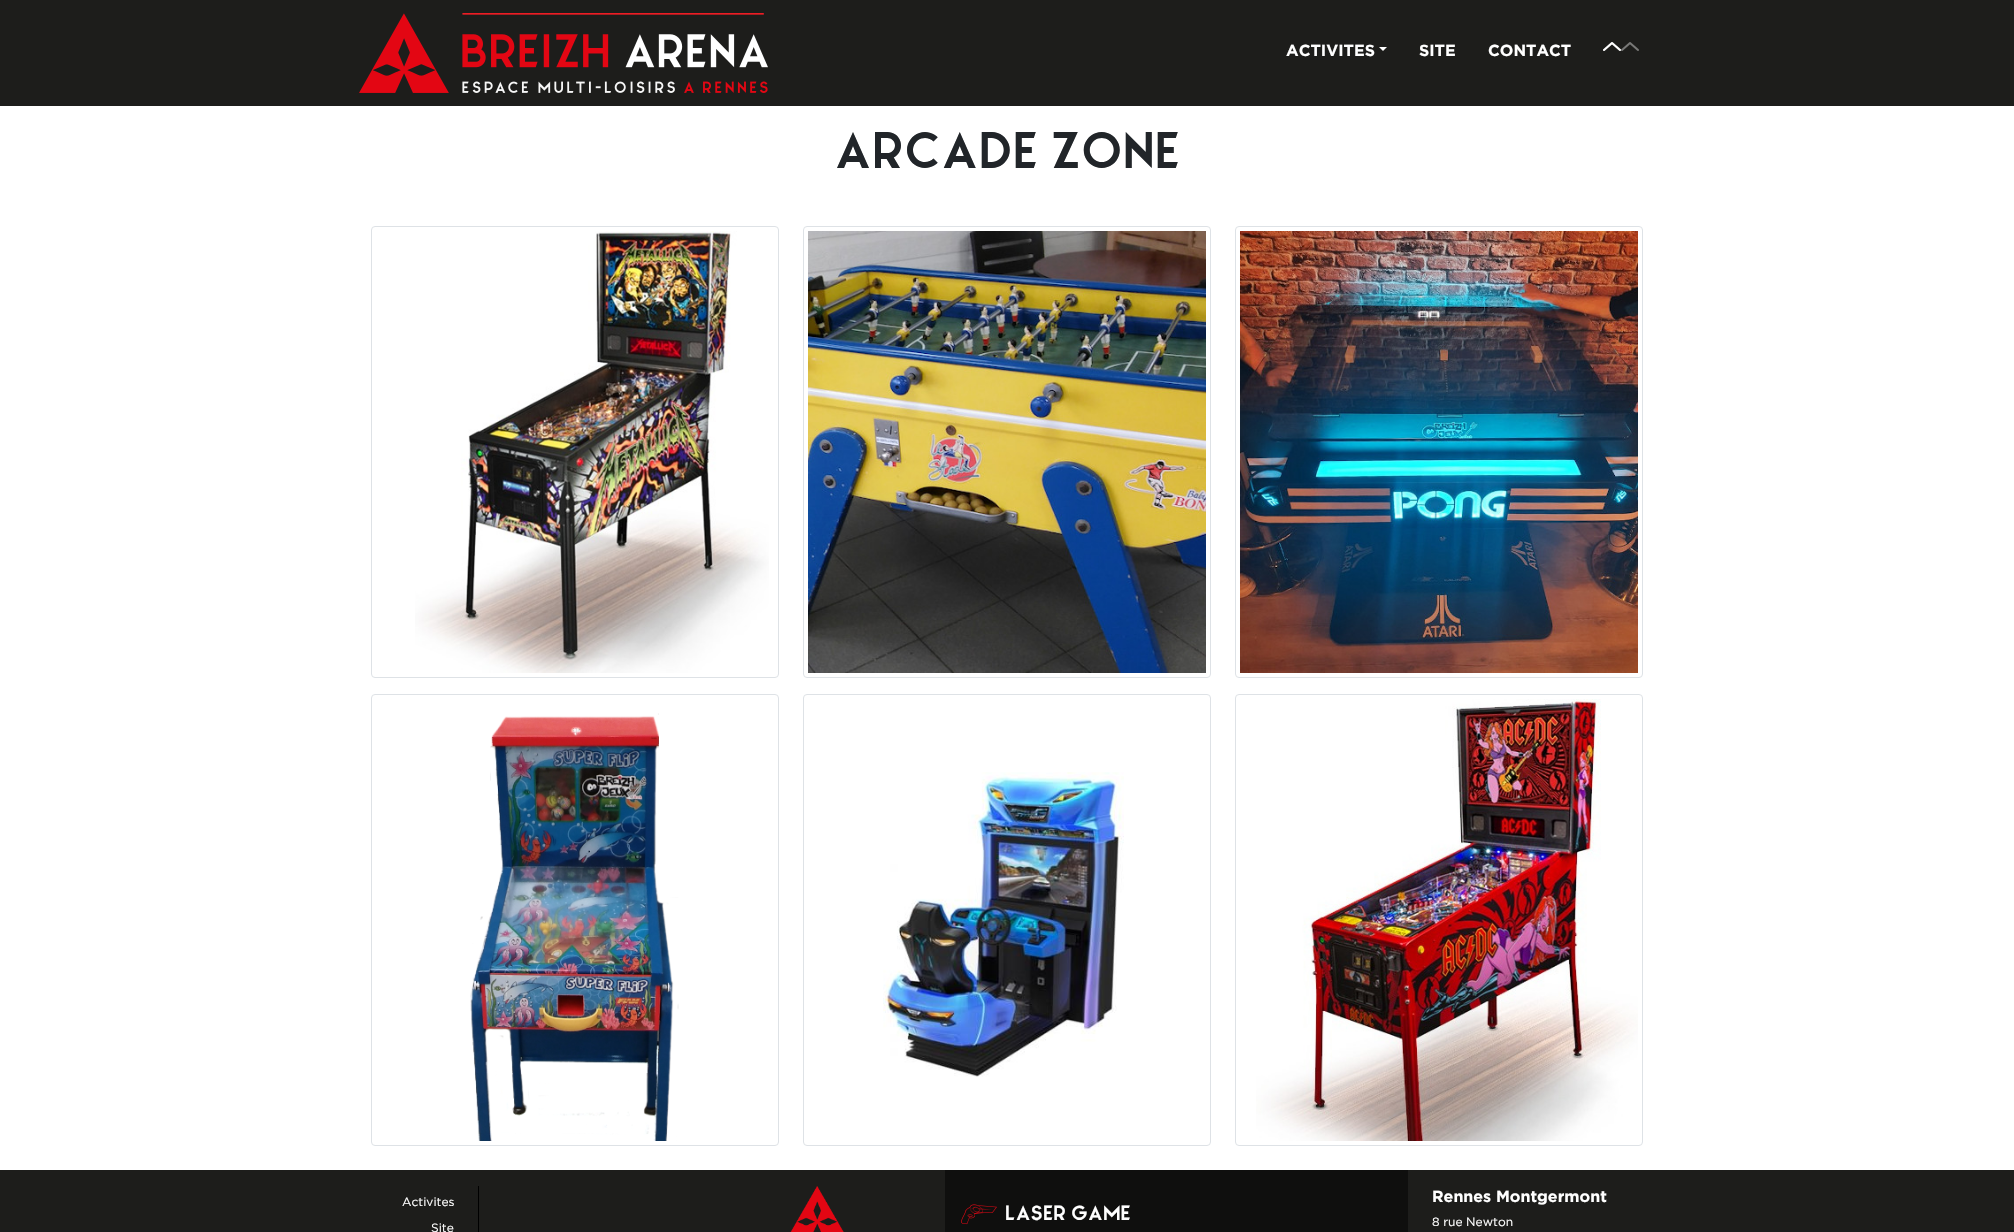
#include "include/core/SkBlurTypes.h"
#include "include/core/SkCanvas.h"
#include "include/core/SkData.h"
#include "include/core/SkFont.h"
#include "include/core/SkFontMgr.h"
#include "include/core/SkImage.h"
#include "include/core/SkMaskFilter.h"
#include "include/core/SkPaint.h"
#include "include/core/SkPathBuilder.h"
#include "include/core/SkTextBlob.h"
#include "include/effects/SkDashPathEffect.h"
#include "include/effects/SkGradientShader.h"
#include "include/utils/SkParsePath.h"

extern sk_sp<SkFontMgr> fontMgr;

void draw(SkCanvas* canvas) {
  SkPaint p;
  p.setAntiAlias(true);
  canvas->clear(SK_ColorWHITE);
  p.setColor(SkColorSetRGB(29, 29, 27));
  canvas->drawRect(SkRect::MakeLTRB(0, 0, 2014, 106), p);
  canvas->drawImageRect(SkImages::DeferredFromEncodedData(SkData::MakeFromFileName("images/1.png")), SkRect::MakeLTRB(359, 13, 768, 93), SkSamplingOptions());
  p.setColor(SK_ColorWHITE);
  canvas->drawPath(SkPathBuilder().moveTo(1379, 47).lineTo(1387, 47).lineTo(1383, 51).close().detach(), p);
  canvas->drawImageRect(SkImages::DeferredFromEncodedData(SkData::MakeFromFileName("images/2.png")), SkRect::MakeLTRB(1603, 42, 1621, 51), SkSamplingOptions());
  canvas->drawImageRect(SkImages::DeferredFromEncodedData(SkData::MakeFromFileName("images/3.png")), SkRect::MakeLTRB(1603, 42, 1639, 51), SkSamplingOptions());
  p.setStyle(SkPaint::kStroke_Style);
  p.setStrokeWidth(1);
  p.setColor(SkColorSetRGB(222, 226, 230));
  canvas->drawRoundRect(SkRect::MakeLTRB(371.5f, 226.5f, 778.5f, 677.5f), 3.5f, 3.5f, p);
  canvas->drawImageRect(SkImages::DeferredFromEncodedData(SkData::MakeFromFileName("images/4.png")), SkRect::MakeLTRB(415, 231, 769, 673), SkSamplingOptions());
  canvas->drawRoundRect(SkRect::MakeLTRB(803.5f, 226.5f, 1210.5f, 677.5f), 3.5f, 3.5f, p);
  canvas->drawImageRect(SkImages::DeferredFromEncodedData(SkData::MakeFromFileName("images/5.png")), SkRect::MakeLTRB(808, 231, 1206, 673), SkSamplingOptions());
  canvas->drawRoundRect(SkRect::MakeLTRB(1235.5f, 226.5f, 1642.5f, 677.5f), 3.5f, 3.5f, p);
  canvas->drawImageRect(SkImages::DeferredFromEncodedData(SkData::MakeFromFileName("images/6.png")), SkRect::MakeLTRB(1240, 231, 1638, 673), SkSamplingOptions());
  canvas->drawRoundRect(SkRect::MakeLTRB(371.5f, 694.5f, 778.5f, 1145.5f), 3.5f, 3.5f, p);
  canvas->drawImageRect(SkImages::DeferredFromEncodedData(SkData::MakeFromFileName("images/7.png")), SkRect::MakeLTRB(470, 713, 679, 1141), SkSamplingOptions());
  canvas->drawRoundRect(SkRect::MakeLTRB(803.5f, 694.5f, 1210.5f, 1145.5f), 3.5f, 3.5f, p);
  canvas->drawImageRect(SkImages::DeferredFromEncodedData(SkData::MakeFromFileName("images/8.png")), SkRect::MakeLTRB(883, 772, 1124, 1077), SkSamplingOptions());
  canvas->drawRoundRect(SkRect::MakeLTRB(1235.5f, 694.5f, 1642.5f, 1145.5f), 3.5f, 3.5f, p);
  canvas->drawImageRect(SkImages::DeferredFromEncodedData(SkData::MakeFromFileName("images/9.png")), SkRect::MakeLTRB(1256, 699, 1638, 1141), SkSamplingOptions());
  p.setStyle(SkPaint::kFill_Style);
  p.setColor(SkColorSetRGB(29, 29, 27));
  canvas->drawRect(SkRect::MakeLTRB(0, 1170, 2014, 1232), p);
  p.setColor(SK_ColorBLACK);
  canvas->drawRect(SkRect::MakeLTRB(478, 1186, 479, 1232), p);
  canvas->drawImageRect(SkImages::DeferredFromEncodedData(SkData::MakeFromFileName("images/10.png")), SkRect::MakeLTRB(790, 1186, 844, 1232), SkSamplingOptions());
  p.setColor(SkColorSetRGB(15, 15, 14));
  canvas->drawRect(SkRect::MakeLTRB(945, 1170, 1408, 1232), p);
  canvas->drawImageRect(SkImages::DeferredFromEncodedData(SkData::MakeFromFileName("images/11.png")), SkRect::MakeLTRB(961, 1204, 997, 1225), SkSamplingOptions());
  SkFont font1(fontMgr->matchFamilyStyle("Gotham", SkFontStyle::Bold()), 16);
  font1.setSubpixel(true);
  p.setColor(SK_ColorWHITE);
  canvas->drawString("ACTIVITES", 1286, 56, font1, p);
  canvas->drawString("SITE", 1419, 56, font1, p);
  canvas->drawString("CONTACT", 1488, 56, font1, p);
  SkFont font2(fontMgr->matchFamilyStyle("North", SkFontStyle::Normal()), 40);
  font2.setSubpixel(true);
  p.setColor(SkColorSetRGB(33, 37, 41));
  canvas->drawString("Arcade zone", 834, 168, font2, p);
  SkFont font3(fontMgr->matchFamilyStyle("Gotham", SkFontStyle::Normal()), 12);
  font3.setSubpixel(true);
  p.setColor(SK_ColorWHITE);
  canvas->drawString("Activites", 402, 1206, font3, p);
  canvas->drawString("Site", 431, 1232, font3, p);
  SkFont font4(fontMgr->matchFamilyStyle("North", SkFontStyle::Normal()), 16);
  font4.setSubpixel(true);
  canvas->drawString("Laser Game", 1005, 1220, font4, p);
  canvas->drawString("Rennes Montgermont", 1432, 1202, font1, p);
  canvas->drawString("8 rue Newton", 1432, 1226, font3, p);
}
